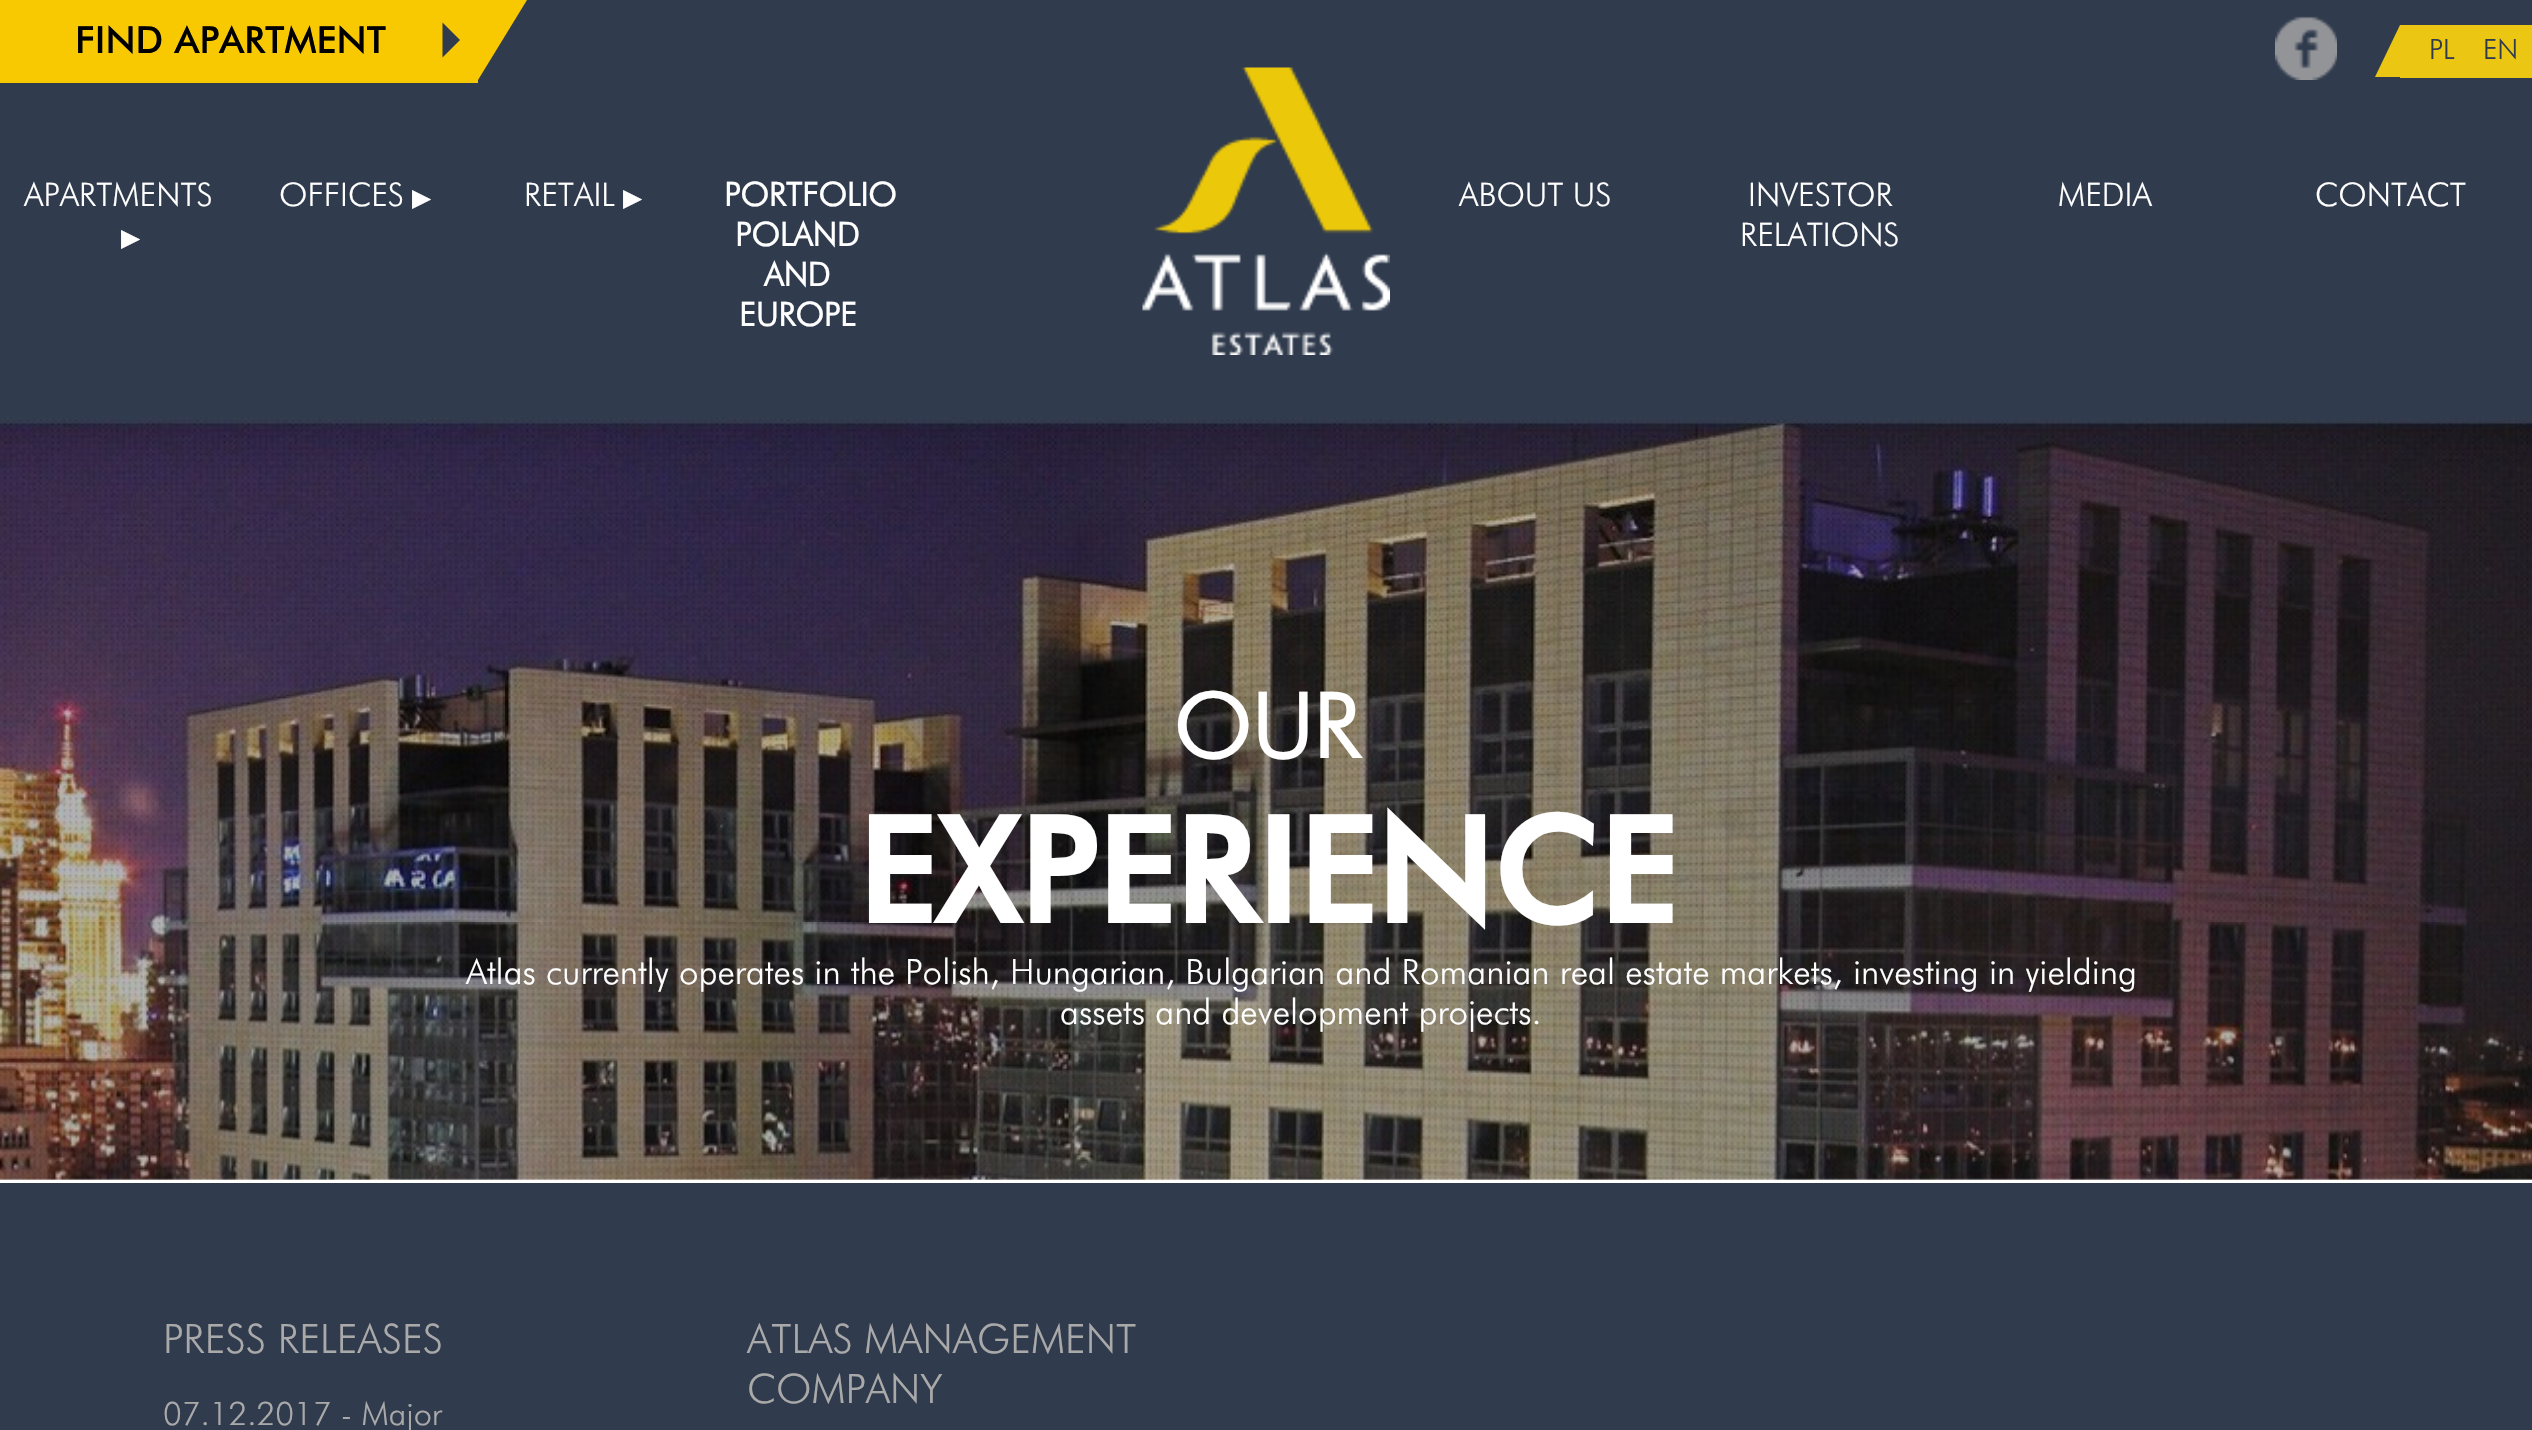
#include "include/core/SkBlurTypes.h"
#include "include/core/SkCanvas.h"
#include "include/core/SkData.h"
#include "include/core/SkFont.h"
#include "include/core/SkFontMgr.h"
#include "include/core/SkImage.h"
#include "include/core/SkMaskFilter.h"
#include "include/core/SkPaint.h"
#include "include/core/SkPathBuilder.h"
#include "include/core/SkTextBlob.h"
#include "include/effects/SkDashPathEffect.h"
#include "include/effects/SkGradientShader.h"
#include "include/utils/SkParsePath.h"

extern sk_sp<SkFontMgr> fontMgr;

void draw(SkCanvas* canvas) {
  SkPaint p;
  p.setAntiAlias(true);
  canvas->clear(SK_ColorWHITE);
  p.setColor(SkColorSetRGB(48, 59, 77));
  canvas->drawRect(SkRect::MakeLTRB(0, 0, 2532, 418), p);
  p.setColor(SkColorSetRGB(248, 200, 0));
  canvas->drawRect(SkRect::MakeLTRB(0, 0, 478, 83), p);
  p.setColor(SkColorSetRGB(48, 59, 77));
  canvas->drawPath(SkPathBuilder().moveTo(442.5f, 57.5f).lineTo(442.5f, 22.5f).lineTo(460, 40).close().detach(), p);
  p.setColor(SkColorSetRGB(248, 200, 0));
  canvas->drawPath(SkPathBuilder().moveTo(478, 0).lineTo(527, 0).lineTo(478, 80).close().detach(), p);
  canvas->drawImageRect(SkImages::DeferredFromEncodedData(SkData::MakeFromFileName("images/1.png")), SkRect::MakeLTRB(2275, 16, 2337, 80), SkSamplingOptions());
  p.setColor(SkColorSetRGB(235, 199, 19));
  canvas->drawRect(SkRect::MakeLTRB(2400, 25, 2532, 78), p);
  canvas->drawPath(SkPathBuilder().moveTo(2400, 77).lineTo(2375, 77).lineTo(2400, 25).close().detach(), p);
  canvas->drawImageRect(SkImages::DeferredFromEncodedData(SkData::MakeFromFileName("images/2.png")), SkRect::MakeLTRB(1142, 67, 1390, 355), SkSamplingOptions());
  canvas->drawImageRect(SkImages::DeferredFromEncodedData(SkData::MakeFromFileName("images/3.png")), SkRect::MakeLTRB(0, 418, 2532, 1180), SkSamplingOptions());
  p.setColor(SkColorSetRGB(48, 59, 77));
  canvas->drawRect(SkRect::MakeLTRB(0, 1183, 2532, 1430), p);
  SkFont font1(fontMgr->matchFamilyStyle("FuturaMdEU", SkFontStyle::Normal()), 37.5f);
  font1.setSubpixel(true);
  p.setColor(SK_ColorBLACK);
  canvas->drawString("FIND APARTMENT", 75, 53, font1, p);
  SkFont font2(fontMgr->matchFamilyStyle("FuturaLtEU", SkFontStyle::Normal()), 28);
  font2.setSubpixel(true);
  p.setColor(SkColorSetRGB(48, 59, 77));
  canvas->drawString("PL", 2429, 59, font2, p);
  canvas->drawString("EN", 2483, 59, font2, p);
  SkFont font3(fontMgr->matchFamilyStyle("FuturaLtEU", SkFontStyle::Normal()), 32.5f);
  font3.setSubpixel(true);
  p.setColor(SK_ColorWHITE);
  canvas->drawString("APARTMENTS", 24, 206, font3, p);
  SkFont font4(fontMgr->matchFamilyStyle("DejaVu Sans", SkFontStyle::Normal()), 25);
  font4.setSubpixel(true);
  canvas->drawString("▶", 121, 246, font4, p);
  canvas->drawString("OFFICES", 279, 206, font3, p);
  canvas->drawString("▶", 412, 206, font4, p);
  canvas->drawString("RETAIL", 524, 206, font3, p);
  canvas->drawString("▶", 623, 206, font4, p);
  SkFont font5(fontMgr->matchFamilyStyle("FuturaLtEU", SkFontStyle::Bold()), 32.5f);
  font5.setSubpixel(true);
  canvas->drawString("PORTFOLIO", 724, 206, font5, p);
  canvas->drawString("POLAND", 735, 246, font5, p);
  canvas->drawString("AND", 764, 286, font5, p);
  canvas->drawString("EUROPE", 739, 326, font5, p);
  canvas->drawString("ABOUT US", 1459, 206, font3, p);
  canvas->drawString("INVESTOR", 1748, 206, font3, p);
  canvas->drawString("RELATIONS", 1740, 246, font3, p);
  canvas->drawString("MEDIA", 2058, 206, font3, p);
  canvas->drawString("CONTACT", 2315, 206, font3, p);
  SkFont font6(fontMgr->matchFamilyStyle("FuturaLtEU", SkFontStyle::Bold()), 89);
  font6.setSubpixel(true);
  canvas->drawString("OUR", 1173, 758, font6, p);
  SkFont font7(fontMgr->matchFamilyStyle("FuturaMdEU", SkFontStyle::Bold()), 146.25f);
  font7.setSubpixel(true);
  canvas->drawString("EXPERIENCE", 857, 923, font7, p);
  SkFont font8(fontMgr->matchFamilyStyle("FuturaLtEU", SkFontStyle::Normal()), 35);
  font8.setSubpixel(true);
  canvas->drawString("Atlas currently operates in the Polish, Hungarian, Bulgarian and Romanian real estate markets, investing in yielding", 466, 984, font8, p);
  canvas->drawString("assets and development projects.", 1060, 1024, font8, p);
  SkFont font9(fontMgr->matchFamilyStyle("FuturaLtEU", SkFontStyle::Normal()), 40.6f);
  font9.setSubpixel(true);
  p.setColor(SkColorSetRGB(169, 169, 169));
  canvas->drawString("PRESS RELEASES", 163, 1353, font9, p);
  canvas->drawString("07.12.2017 - Major", 163, 1425, font3, p);
  canvas->drawString("ATLAS MANAGEMENT", 747, 1353, font9, p);
  canvas->drawString("COMPANY", 747, 1403, font9, p);
}
